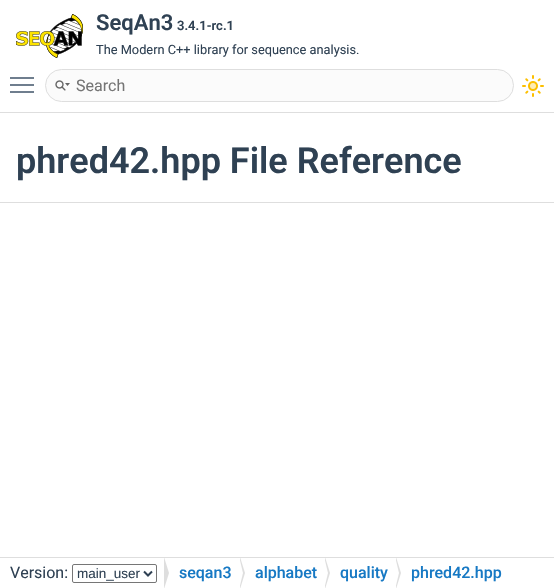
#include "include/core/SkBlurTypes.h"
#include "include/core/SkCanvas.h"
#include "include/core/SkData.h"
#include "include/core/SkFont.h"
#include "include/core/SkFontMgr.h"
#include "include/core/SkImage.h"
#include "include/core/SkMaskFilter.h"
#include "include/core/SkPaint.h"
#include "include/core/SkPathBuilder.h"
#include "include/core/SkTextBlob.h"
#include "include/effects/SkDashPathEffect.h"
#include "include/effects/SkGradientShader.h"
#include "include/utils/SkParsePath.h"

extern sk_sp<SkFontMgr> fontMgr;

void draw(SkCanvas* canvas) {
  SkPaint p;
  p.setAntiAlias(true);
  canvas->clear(SK_ColorWHITE);
  p.setColor(SkColorSetRGB(222, 222, 222));
  canvas->drawRect(SkRect::MakeLTRB(0, 112, 554, 113), p);
  canvas->drawImageRect(SkImages::DeferredFromEncodedData(SkData::MakeFromFileName("images/1.png")), SkRect::MakeLTRB(16, 14, 83, 58), SkSamplingOptions());
  p.setColor(SkColorSetRGB(111, 126, 142));
  canvas->drawRect(SkRect::MakeLTRB(10, 84, 34, 86), p);
  canvas->drawRect(SkRect::MakeLTRB(10, 77, 34, 79), p);
  canvas->drawRect(SkRect::MakeLTRB(10, 91, 34, 93), p);
  p.setColor(SkColorSetRGB(251, 251, 251));
  canvas->drawRoundRect(SkRect::MakeLTRB(45.5f, 69.5f, 513.5f, 101.5f), 16, 16, p);
  p.setStyle(SkPaint::kStroke_Style);
  p.setStrokeWidth(1);
  p.setColor(SkColorSetRGB(222, 222, 222));
  canvas->drawRoundRect(SkRect::MakeLTRB(45.5f, 69.5f, 513.5f, 101.5f), 16, 16, p);
  canvas->drawImageRect(SkImages::DeferredFromEncodedData(SkData::MakeFromFileName("images/2.png")), SkRect::MakeLTRB(55, 80, 70, 91), SkSamplingOptions());
  canvas->drawImageRect(SkImages::DeferredFromEncodedData(SkData::MakeFromFileName("images/3.png")), SkRect::MakeLTRB(522, 75, 544, 97), SkSamplingOptions());
  p.setStyle(SkPaint::kFill_Style);
  canvas->drawRect(SkRect::MakeLTRB(0, 202, 554, 203), p);
  canvas->drawRect(SkRect::MakeLTRB(0, 557, 554, 558), p);
  p.setStyle(SkPaint::kStroke_Style);
  p.setColor(SkColorSetRGB(118, 118, 118));
  canvas->drawRoundRect(SkRect::MakeLTRB(72.5f, 564.5f, 156.5f, 582.5f), 1.5f, 1.5f, p);
  p.setStrokeWidth(2);
  p.setColor(SkColorSetRGB(47, 65, 83));
  canvas->drawPath(SkPathBuilder().moveTo(144, 571.5f).lineTo(148, 575.5f).lineTo(152, 571.5f).detach(), p);
  p.setStyle(SkPaint::kFill_Style);
  p.setColor(SkColorSetRGB(222, 222, 222));
  canvas->drawPath(SkPathBuilder().moveTo(164, 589).lineTo(164, 557).lineTo(169, 573).close().detach(), p);
  canvas->drawPath(SkPathBuilder().moveTo(240, 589).lineTo(240, 557).lineTo(245, 573).close().detach(), p);
  canvas->save();
  canvas->clipRect(SkRect::MakeLTRB(0, 558, 554, 588));
  p.setColor(SK_ColorWHITE);
  canvas->drawPath(SkPathBuilder().moveTo(238, 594).lineTo(238, 552).lineTo(243, 573).close().detach(), p);
  canvas->restore();
  p.setColor(SkColorSetRGB(222, 222, 222));
  canvas->drawPath(SkPathBuilder().moveTo(325, 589).lineTo(325, 557).lineTo(330, 573).close().detach(), p);
  canvas->save();
  canvas->clipRect(SkRect::MakeLTRB(0, 558, 554, 588));
  p.setColor(SK_ColorWHITE);
  canvas->drawPath(SkPathBuilder().moveTo(323, 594).lineTo(323, 552).lineTo(328, 573).close().detach(), p);
  canvas->restore();
  p.setColor(SkColorSetRGB(222, 222, 222));
  canvas->drawPath(SkPathBuilder().moveTo(396, 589).lineTo(396, 557).lineTo(401, 573).close().detach(), p);
  canvas->save();
  canvas->clipRect(SkRect::MakeLTRB(0, 558, 554, 588));
  p.setColor(SK_ColorWHITE);
  canvas->drawPath(SkPathBuilder().moveTo(394, 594).lineTo(394, 552).lineTo(399, 573).close().detach(), p);
  canvas->restore();
  SkFont font1(fontMgr->matchFamilyStyle("Roboto", SkFontStyle(600, SkFontStyle::kNormal_Width, SkFontStyle::kUpright_Slant)), 22);
  font1.setSubpixel(true);
  p.setColor(SkColorSetRGB(47, 65, 83));
  canvas->drawString("SeqAn3", 96, 30, font1, p);
  SkFont font2(fontMgr->matchFamilyStyle("Roboto", SkFontStyle(600, SkFontStyle::kNormal_Width, SkFontStyle::kUpright_Slant)), 13);
  font2.setSubpixel(true);
  canvas->drawString("3.4.1-rc.1", 177, 30, font2, p);
  SkFont font3(fontMgr->matchFamilyStyle("Roboto", SkFontStyle::Normal()), 12.8f);
  font3.setSubpixel(true);
  canvas->drawString("The Modern C++ library for sequence analysis.", 96, 54, font3, p);
  SkFont font4(fontMgr->matchFamilyStyle("Roboto", SkFontStyle::Normal()), 16);
  font4.setSubpixel(true);
  p.setColor(SkColorSetRGB(117, 117, 117));
  canvas->drawString("Search", 76, 91, font4, p);
  SkFont font5(fontMgr->matchFamilyStyle("Roboto", SkFontStyle(600, SkFontStyle::kNormal_Width, SkFontStyle::kUpright_Slant)), 36);
  font5.setSubpixel(true);
  p.setColor(SkColorSetRGB(47, 65, 83));
  canvas->drawString("phred42.hpp File Reference", 16, 173, font5, p);
  canvas->drawString("Version:", 10, 578, font4, p);
  SkFont font6(fontMgr->matchFamilyStyle("Liberation Sans", SkFontStyle::Normal()), 13.5f);
  font6.setSubpixel(true);
  canvas->drawString("main_user", 77, 578, font6, p);
  SkFont font7(fontMgr->matchFamilyStyle("Roboto", SkFontStyle(500, SkFontStyle::kNormal_Width, SkFontStyle::kUpright_Slant)), 16);
  font7.setSubpixel(true);
  p.setColor(SkColorSetRGB(23, 121, 196));
  canvas->drawString("seqan3", 179, 578, font7, p);
  canvas->drawString("alphabet", 255, 578, font7, p);
  canvas->drawString("quality", 340, 578, font7, p);
  canvas->drawString("phred42.hpp", 411, 578, font7, p);
}
